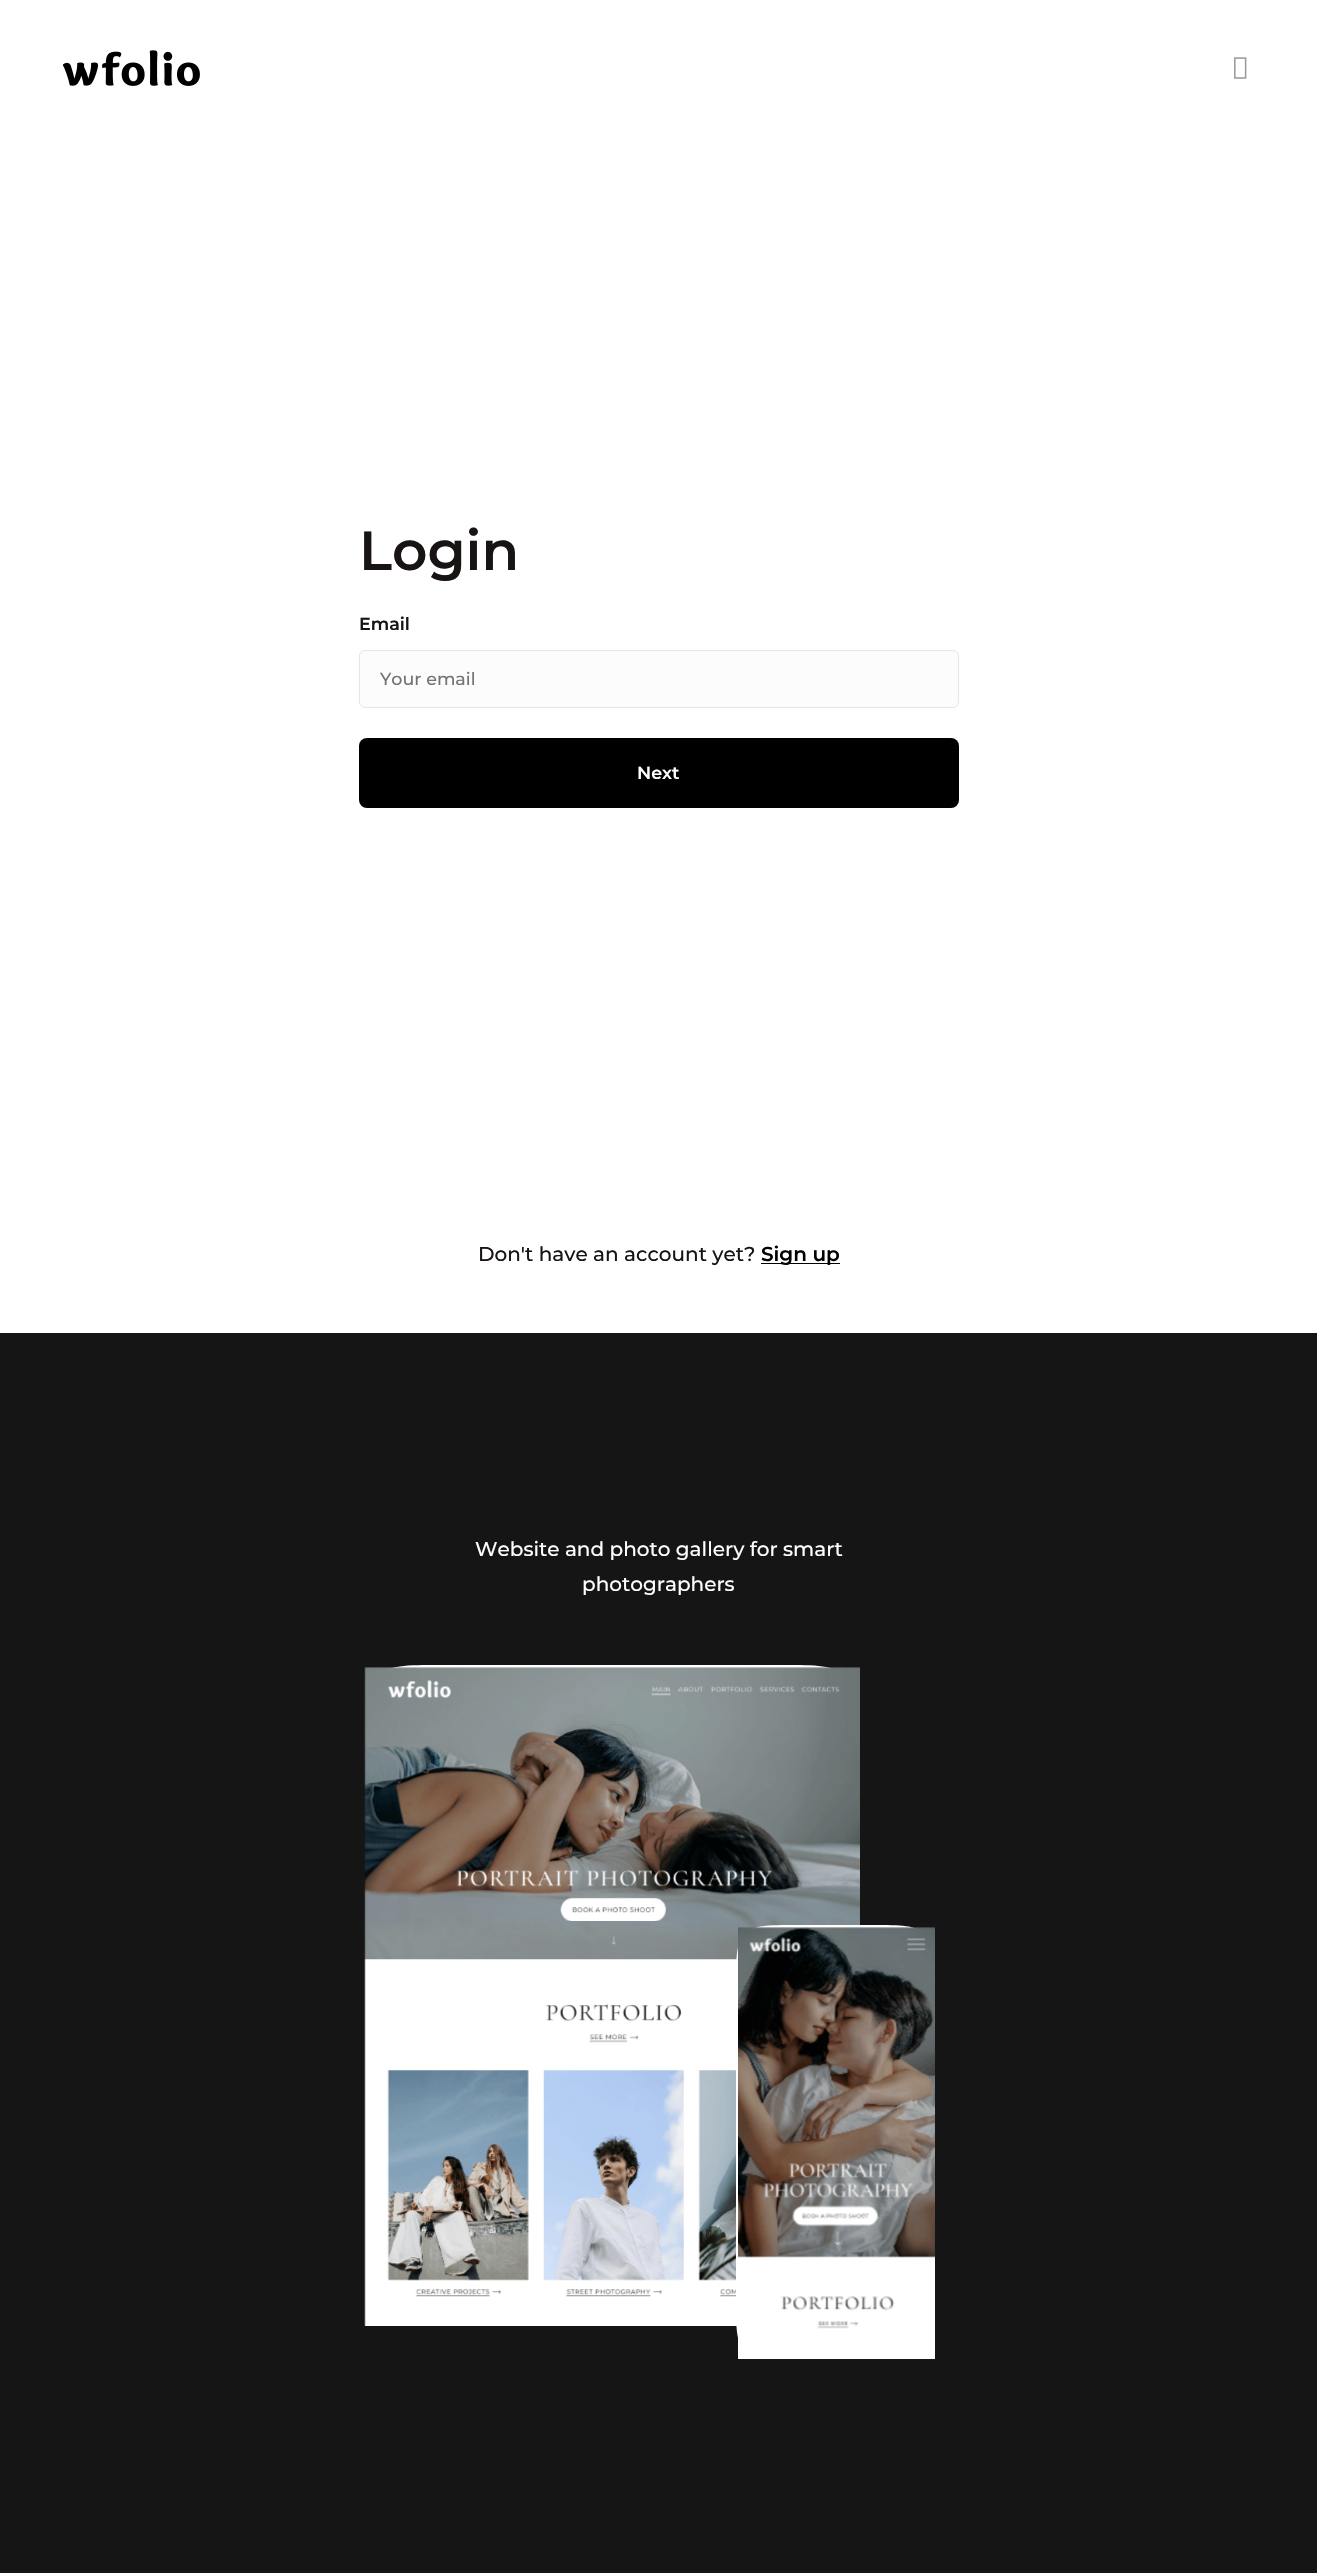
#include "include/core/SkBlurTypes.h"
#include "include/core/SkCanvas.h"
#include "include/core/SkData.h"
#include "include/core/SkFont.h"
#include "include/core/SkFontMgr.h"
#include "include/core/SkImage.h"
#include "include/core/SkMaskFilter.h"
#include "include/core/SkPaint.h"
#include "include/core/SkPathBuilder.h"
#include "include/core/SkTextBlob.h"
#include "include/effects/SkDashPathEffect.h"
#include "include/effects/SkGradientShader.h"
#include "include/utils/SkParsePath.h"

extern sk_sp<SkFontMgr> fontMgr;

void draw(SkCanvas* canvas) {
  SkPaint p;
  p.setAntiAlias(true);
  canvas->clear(SK_ColorWHITE);
  canvas->drawImageRect(SkImages::DeferredFromEncodedData(SkData::MakeFromFileName("images/1.png")), SkRect::MakeLTRB(63, 50, 200, 86), SkSamplingOptions());
  canvas->drawImageRect(SkImages::DeferredFromEncodedData(SkData::MakeFromFileName("images/2.png")), SkRect::MakeLTRB(1234, 57, 1247, 79), SkSamplingOptions());
  p.setColor(SkColorSetRGB(252, 252, 252));
  canvas->drawRoundRect(SkRect::MakeLTRB(359.5f, 650.5f, 958.5f, 707.5f), 5.5f, 5.5f, p);
  p.setStyle(SkPaint::kStroke_Style);
  p.setStrokeWidth(1);
  p.setColor(SkColorSetRGB(230, 230, 230));
  canvas->drawRoundRect(SkRect::MakeLTRB(359.5f, 650.5f, 958.5f, 707.5f), 5.5f, 5.5f, p);
  p.setStyle(SkPaint::kFill_Style);
  p.setColor(SK_ColorBLACK);
  canvas->drawRoundRect(SkRect::MakeLTRB(359, 738, 959, 808), 8, 8, p);
  canvas->drawRect(SkRect::MakeLTRB(761, 1263, 840, 1264), p);
  p.setColor(SkColorSetRGB(21, 21, 21));
  canvas->drawRect(SkRect::MakeLTRB(0, 1333, 1317, 2573), p);
  canvas->save();
  canvas->clipRect(SkRect::MakeLTRB(363, 1665, 860, 2326));
  p.setColor(SK_ColorWHITE);
  canvas->drawPath(SkPathBuilder().moveTo(366, 1739).cubicTo(366, 1704, 366, 1687, 377, 1676).cubicTo(388, 1665, 406, 1665, 441, 1665).lineTo(782, 1665).cubicTo(817, 1665, 834, 1665, 845, 1676).cubicTo(856, 1687, 856, 1704, 856, 1739).lineTo(856, 2253).cubicTo(856, 2287, 856, 2305, 845, 2316).cubicTo(834, 2327, 817, 2327, 782, 2327).lineTo(441, 2327).cubicTo(406, 2327, 388, 2327, 377, 2316).cubicTo(366, 2305, 366, 2287, 366, 2253).close().detach(), p);
  canvas->restore();
  canvas->drawImageRect(SkImages::DeferredFromEncodedData(SkData::MakeFromFileName("images/3.png")), SkRect::MakeLTRB(364, 1667, 860, 2326), SkSamplingOptions());
  canvas->save();
  canvas->clipRect(SkRect::MakeLTRB(735, 1925, 935, 2359));
  canvas->drawPath(SkPathBuilder().moveTo(736, 1986).cubicTo(736, 1957, 736, 1943, 745, 1934).cubicTo(753, 1925, 768, 1925, 796, 1925).lineTo(873, 1925).cubicTo(901, 1925, 916, 1925, 924, 1934).cubicTo(933, 1943, 933, 1957, 933, 1986).lineTo(933, 2299).cubicTo(933, 2328, 933, 2342, 924, 2351).cubicTo(916, 2360, 901, 2360, 873, 2360).lineTo(796, 2360).cubicTo(768, 2360, 753, 2360, 745, 2351).cubicTo(736, 2342, 736, 2328, 736, 2299).close().detach(), p);
  canvas->restore();
  canvas->drawImageRect(SkImages::DeferredFromEncodedData(SkData::MakeFromFileName("images/4.png")), SkRect::MakeLTRB(738, 1927, 935, 2359), SkSamplingOptions());
  SkFont font1(fontMgr->matchFamilyStyle("Montserrat", SkFontStyle(100, SkFontStyle::kNormal_Width, SkFontStyle::kUpright_Slant)), 55);
  font1.setSubpixel(true);
  p.setColor(SkColorSetRGB(23, 20, 19));
  canvas->drawString("Login", 359, 570, font1, p);
  SkFont font2(fontMgr->matchFamilyStyle("Montserrat", SkFontStyle(100, SkFontStyle::kNormal_Width, SkFontStyle::kUpright_Slant)), 17.5f);
  font2.setSubpixel(true);
  canvas->drawString("Email", 359, 630, font2, p);
  SkFont font3(fontMgr->matchFamilyStyle("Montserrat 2", SkFontStyle(100, SkFontStyle::kNormal_Width, SkFontStyle::kUpright_Slant)), 17.5f);
  font3.setSubpixel(true);
  p.setColor(SkColorSetRGB(116, 116, 116));
  canvas->drawString("Your email", 380, 685, font3, p);
  p.setColor(SK_ColorWHITE);
  canvas->drawString("Next", 637, 779, font2, p);
  SkFont font4(fontMgr->matchFamilyStyle("Montserrat 2", SkFontStyle(100, SkFontStyle::kNormal_Width, SkFontStyle::kUpright_Slant)), 20);
  font4.setSubpixel(true);
  p.setColor(SkColorSetRGB(23, 20, 19));
  canvas->drawString("Don't have an account yet?", 478, 1261, font4, p);
  SkFont font5(fontMgr->matchFamilyStyle("Montserrat", SkFontStyle(100, SkFontStyle::kNormal_Width, SkFontStyle::kUpright_Slant)), 20);
  font5.setSubpixel(true);
  p.setColor(SK_ColorBLACK);
  canvas->drawString("Sign up", 761, 1261, font5, p);
  p.setColor(SK_ColorWHITE);
  canvas->drawString("Website and photo gallery for smart", 475, 1556, font4, p);
  canvas->drawString("photographers", 582, 1591, font4, p);
}
